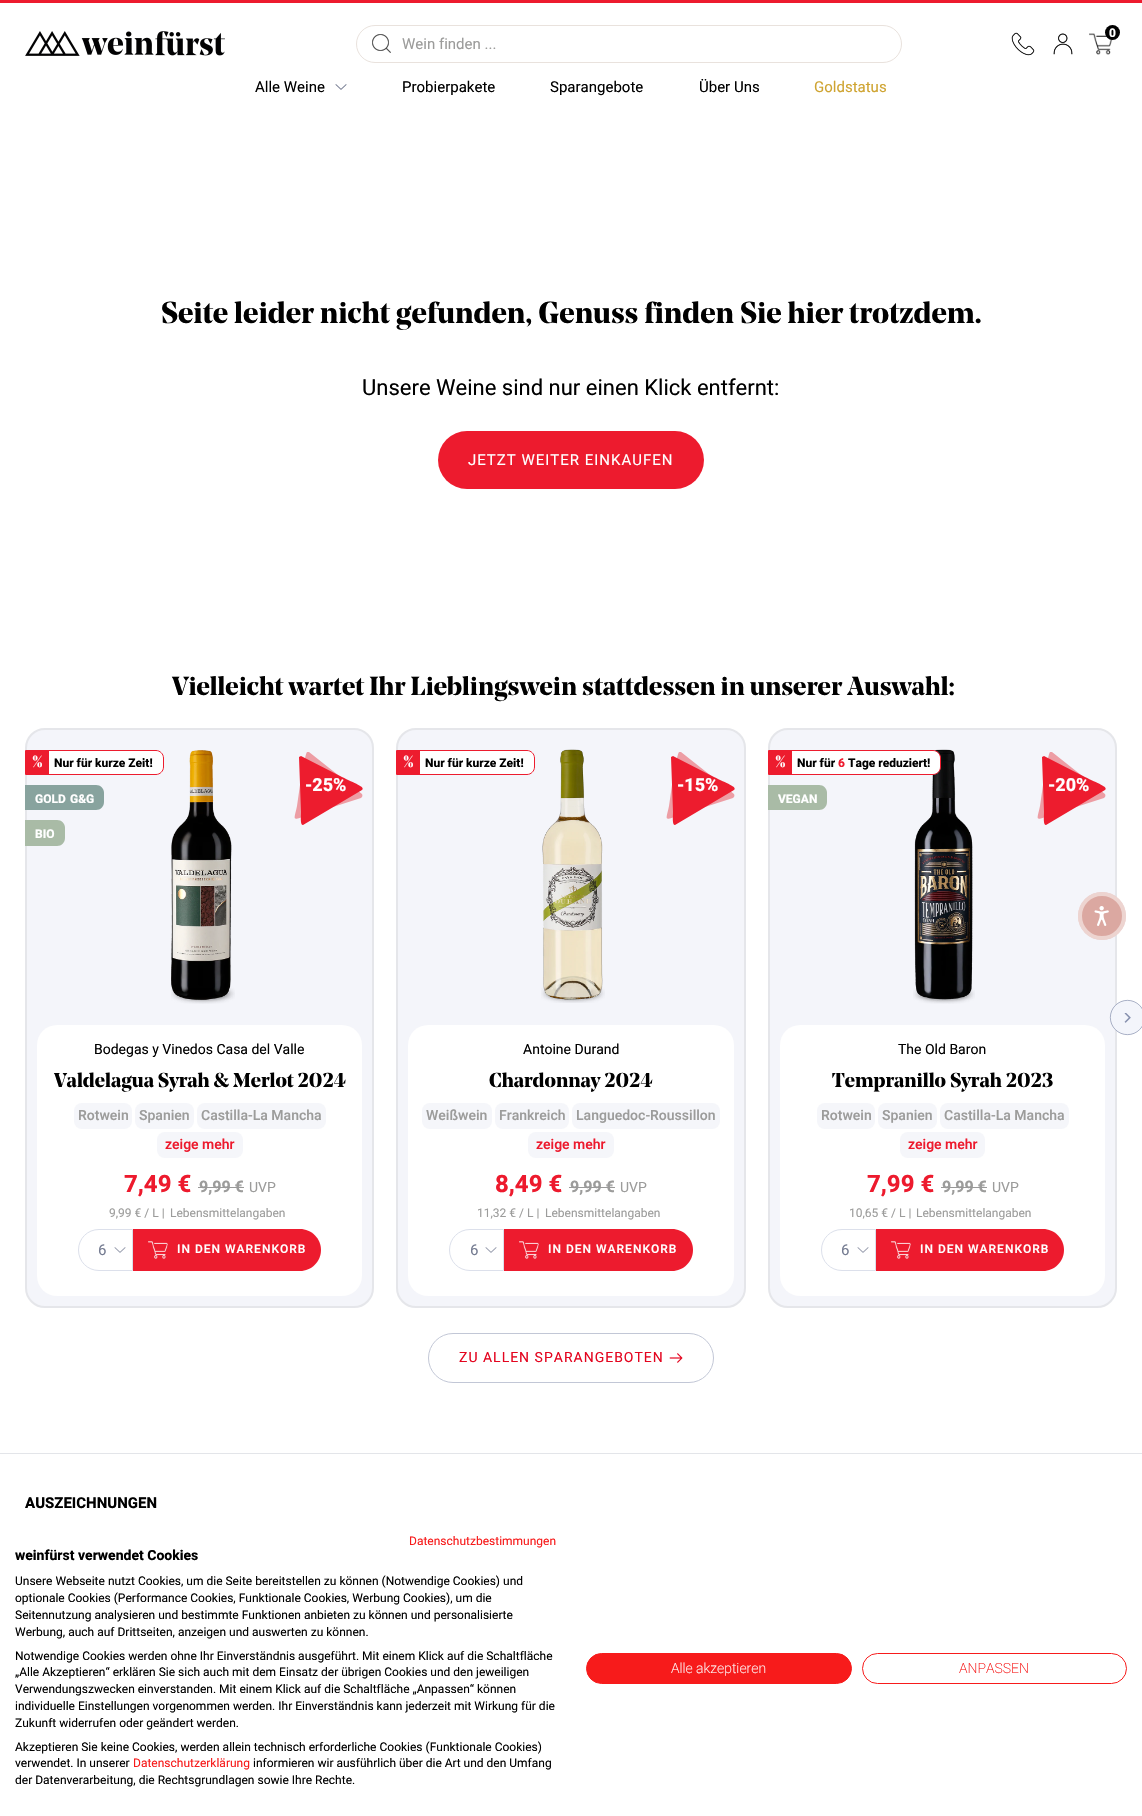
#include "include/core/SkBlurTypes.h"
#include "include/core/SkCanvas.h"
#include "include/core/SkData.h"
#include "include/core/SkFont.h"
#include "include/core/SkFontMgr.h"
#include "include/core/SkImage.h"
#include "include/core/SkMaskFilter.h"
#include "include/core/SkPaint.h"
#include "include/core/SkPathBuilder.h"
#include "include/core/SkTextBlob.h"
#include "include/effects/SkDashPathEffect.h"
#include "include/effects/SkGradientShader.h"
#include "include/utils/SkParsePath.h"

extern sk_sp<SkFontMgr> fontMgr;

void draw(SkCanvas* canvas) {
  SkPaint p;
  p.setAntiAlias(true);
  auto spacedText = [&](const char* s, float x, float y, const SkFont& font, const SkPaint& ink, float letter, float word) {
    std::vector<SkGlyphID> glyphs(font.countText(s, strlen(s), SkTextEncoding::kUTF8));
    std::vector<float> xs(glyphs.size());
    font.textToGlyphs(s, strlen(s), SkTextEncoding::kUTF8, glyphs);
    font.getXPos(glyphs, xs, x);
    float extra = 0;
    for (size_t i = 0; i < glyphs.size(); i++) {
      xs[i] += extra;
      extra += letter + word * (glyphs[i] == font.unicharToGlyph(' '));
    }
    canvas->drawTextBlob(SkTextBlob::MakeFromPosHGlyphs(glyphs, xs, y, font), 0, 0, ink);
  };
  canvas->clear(SK_ColorWHITE);
  p.setColor(SkColorSetRGB(237, 27, 46));
  canvas->drawRect(SkRect::MakeLTRB(0, 0, 1142, 3), p);
  canvas->drawImageRect(SkImages::DeferredFromEncodedData(SkData::MakeFromFileName("images/1.png")), SkRect::MakeLTRB(25, 31, 225, 56), SkSamplingOptions());
  p.setStyle(SkPaint::kStroke_Style);
  p.setStrokeWidth(1);
  p.setColor(SkColorSetRGB(233, 226, 221));
  canvas->drawRoundRect(SkRect::MakeLTRB(356.5f, 25.5f, 901.5f, 62.5f), 18.5f, 18.5f, p);
  canvas->drawImageRect(SkImages::DeferredFromEncodedData(SkData::MakeFromFileName("images/2.png")), SkRect::MakeLTRB(372, 34, 391, 53), SkSamplingOptions());
  canvas->drawImageRect(SkImages::DeferredFromEncodedData(SkData::MakeFromFileName("images/3.png")), SkRect::MakeLTRB(1011, 32, 1035, 56), SkSamplingOptions());
  canvas->drawImageRect(SkImages::DeferredFromEncodedData(SkData::MakeFromFileName("images/4.png")), SkRect::MakeLTRB(1053, 33, 1073, 55), SkSamplingOptions());
  canvas->drawImageRect(SkImages::DeferredFromEncodedData(SkData::MakeFromFileName("images/5.png")), SkRect::MakeLTRB(1089, 33, 1113, 55), SkSamplingOptions());
  p.setStyle(SkPaint::kFill_Style);
  p.setColor(SK_ColorBLACK);
  canvas->drawCircle(1112.5f, 32.5f, 7.5f, p);
  canvas->drawImageRect(SkImages::DeferredFromEncodedData(SkData::MakeFromFileName("images/6.png")), SkRect::MakeLTRB(335, 84, 347, 90), SkSamplingOptions());
  p.setColor(SkColorSetRGB(237, 27, 46));
  canvas->drawRoundRect(SkRect::MakeLTRB(438, 431, 704, 489), 29, 29, p);
  p.setColor(SkColorSetRGB(244, 245, 250));
  canvas->drawRoundRect(SkRect::MakeLTRB(26, 729, 373, 1307), 19, 19, p);
  p.setStyle(SkPaint::kStroke_Style);
  p.setStrokeWidth(2);
  p.setColor(SkColorSetRGB(229, 230, 234));
  canvas->drawRoundRect(SkRect::MakeLTRB(26, 729, 373, 1307), 19, 19, p);
  p.setStyle(SkPaint::kFill_Style);
  p.setColor(SK_ColorWHITE);
  canvas->drawPath(SkPathBuilder().moveTo(25.5f, 750.5f).lineTo(156, 750.5f).cubicTo(160, 750.5f, 163.5f, 754, 163.5f, 758).lineTo(163.5f, 767).cubicTo(163.5f, 771, 160, 774.5f, 156, 774.5f).lineTo(25.5f, 774.5f).close().detach(), p);
  p.setStyle(SkPaint::kStroke_Style);
  p.setStrokeWidth(1);
  p.setColor(SkColorSetRGB(237, 28, 46));
  canvas->drawPath(SkPathBuilder().moveTo(25.5f, 750.5f).lineTo(156, 750.5f).cubicTo(160, 750.5f, 163.5f, 754, 163.5f, 758).lineTo(163.5f, 767).cubicTo(163.5f, 771, 160, 774.5f, 156, 774.5f).lineTo(25.5f, 774.5f).close().detach(), p);
  p.setStyle(SkPaint::kFill_Style);
  canvas->drawRect(SkRect::MakeLTRB(26, 751, 49, 774), p);
  p.setColor(SkColorSetRGB(136, 163, 158));
  canvas->drawPath(SkPathBuilder().moveTo(25, 785).lineTo(96, 785).cubicTo(100.5f, 785, 104, 788.5f, 104, 793).lineTo(104, 802).cubicTo(104, 806.5f, 100.5f, 810, 96, 810).lineTo(25, 810).close().detach(), p);
  p.setColor(SkColorSetRGB(169, 187, 166));
  canvas->drawPath(SkPathBuilder().moveTo(25, 820).lineTo(57, 820).cubicTo(61.5f, 820, 65, 823.5f, 65, 828).lineTo(65, 838).cubicTo(65, 842.5f, 61.5f, 846, 57, 846).lineTo(25, 846).close().detach(), p);
  canvas->drawImageRect(SkImages::DeferredFromEncodedData(SkData::MakeFromFileName("images/7.png")), SkRect::MakeLTRB(171, 750, 235, 1004), SkSamplingOptions());
  p.setColor(SkColorSetRGB(237, 157, 164));
  canvas->drawPath(SkPathBuilder(SkPathFillType::kEvenOdd).moveTo(361, 798).lineTo(308, 815).cubicTo(291, 821, 294, 821, 297, 806).lineTo(300, 785).cubicTo(301, 781, 305, 754, 307, 752).lineTo(309, 752).lineTo(362, 794).cubicTo(363, 796, 362, 797, 361, 798).close().detach(), p);
  p.setColor(SkColorSetRGB(237, 28, 46));
  canvas->drawPath(SkPathBuilder(SkPathFillType::kEvenOdd).moveTo(362, 790).lineTo(303, 825).cubicTo(300, 825, 301, 817, 301, 812).lineTo(299, 757).lineTo(301, 756).lineTo(342, 777).cubicTo(354, 783, 366, 787, 362, 790).close().detach(), p);
  p.setColor(SK_ColorWHITE);
  canvas->drawRoundRect(SkRect::MakeLTRB(37, 1025, 362, 1296), 20, 20, p);
  p.setColor(SkColorSetRGB(245, 246, 250));
  canvas->drawRoundRect(SkRect::MakeLTRB(74, 1103, 132, 1129), 8, 8, p);
  canvas->drawRoundRect(SkRect::MakeLTRB(135, 1103, 194, 1129), 8, 8, p);
  canvas->drawRoundRect(SkRect::MakeLTRB(197, 1103, 326, 1129), 8, 8, p);
  canvas->drawRoundRect(SkRect::MakeLTRB(157, 1132, 243, 1158), 8, 8, p);
  p.setStyle(SkPaint::kStroke_Style);
  p.setColor(SkColorSetRGB(220, 224, 235));
  canvas->drawPath(SkPathBuilder().moveTo(99, 1229.5f).lineTo(132.5f, 1229.5f).lineTo(132.5f, 1270.5f).lineTo(99, 1270.5f).cubicTo(87.5f, 1270.5f, 78.5f, 1261.5f, 78.5f, 1250).cubicTo(78.5f, 1238.5f, 87.5f, 1229.5f, 99, 1229.5f).close().detach(), p);
  canvas->drawImageRect(SkImages::DeferredFromEncodedData(SkData::MakeFromFileName("images/8.png")), SkRect::MakeLTRB(114, 1247, 126, 1253), SkSamplingOptions());
  p.setStyle(SkPaint::kFill_Style);
  p.setColor(SkColorSetRGB(237, 27, 46));
  canvas->drawPath(SkPathBuilder().moveTo(133, 1229).lineTo(300, 1229).cubicTo(311.5f, 1229, 321, 1238.5f, 321, 1250).cubicTo(321, 1261.5f, 311.5f, 1271, 300, 1271).lineTo(133, 1271).close().detach(), p);
  canvas->drawImageRect(SkImages::DeferredFromEncodedData(SkData::MakeFromFileName("images/9.png")), SkRect::MakeLTRB(148, 1241, 168, 1259), SkSamplingOptions());
  p.setColor(SkColorSetRGB(244, 245, 250));
  canvas->drawRoundRect(SkRect::MakeLTRB(397, 729, 745, 1307), 19, 19, p);
  p.setStyle(SkPaint::kStroke_Style);
  p.setStrokeWidth(2);
  p.setColor(SkColorSetRGB(229, 230, 234));
  canvas->drawRoundRect(SkRect::MakeLTRB(397, 729, 745, 1307), 19, 19, p);
  p.setStyle(SkPaint::kFill_Style);
  p.setColor(SK_ColorWHITE);
  canvas->drawPath(SkPathBuilder().moveTo(396.5f, 750.5f).lineTo(527, 750.5f).cubicTo(531, 750.5f, 534.5f, 754, 534.5f, 758).lineTo(534.5f, 767).cubicTo(534.5f, 771, 531, 774.5f, 527, 774.5f).lineTo(396.5f, 774.5f).close().detach(), p);
  p.setStyle(SkPaint::kStroke_Style);
  p.setStrokeWidth(1);
  p.setColor(SkColorSetRGB(237, 28, 46));
  canvas->drawPath(SkPathBuilder().moveTo(396.5f, 750.5f).lineTo(527, 750.5f).cubicTo(531, 750.5f, 534.5f, 754, 534.5f, 758).lineTo(534.5f, 767).cubicTo(534.5f, 771, 531, 774.5f, 527, 774.5f).lineTo(396.5f, 774.5f).close().detach(), p);
  p.setStyle(SkPaint::kFill_Style);
  canvas->drawRect(SkRect::MakeLTRB(397, 751, 420, 774), p);
  canvas->drawImageRect(SkImages::DeferredFromEncodedData(SkData::MakeFromFileName("images/10.png")), SkRect::MakeLTRB(541, 749, 605, 1003), SkSamplingOptions());
  p.setColor(SkColorSetRGB(237, 157, 164));
  canvas->drawPath(SkPathBuilder(SkPathFillType::kEvenOdd).moveTo(733, 798).lineTo(680, 815).cubicTo(663, 821, 666, 821, 669, 806).lineTo(672, 785).cubicTo(673, 781, 677, 754, 679, 752).lineTo(681, 752).lineTo(734, 794).cubicTo(735, 796, 734, 797, 733, 798).close().detach(), p);
  p.setColor(SkColorSetRGB(237, 28, 46));
  canvas->drawPath(SkPathBuilder(SkPathFillType::kEvenOdd).moveTo(734, 790).lineTo(675, 825).cubicTo(672, 825, 673, 817, 673, 812).lineTo(671, 757).lineTo(673, 756).lineTo(714, 777).cubicTo(726, 783, 738, 787, 734, 790).close().detach(), p);
  p.setColor(SK_ColorWHITE);
  canvas->drawRoundRect(SkRect::MakeLTRB(408, 1025, 734, 1296), 20, 20, p);
  p.setColor(SkColorSetRGB(245, 246, 250));
  canvas->drawRoundRect(SkRect::MakeLTRB(422, 1103, 492, 1129), 8, 8, p);
  canvas->drawRoundRect(SkRect::MakeLTRB(495, 1103, 569, 1129), 8, 8, p);
  canvas->drawRoundRect(SkRect::MakeLTRB(572, 1103, 720, 1129), 8, 8, p);
  canvas->drawRoundRect(SkRect::MakeLTRB(528, 1132, 614, 1158), 8, 8, p);
  p.setStyle(SkPaint::kStroke_Style);
  p.setColor(SkColorSetRGB(220, 224, 235));
  canvas->drawPath(SkPathBuilder().moveTo(470, 1229.5f).lineTo(503.5f, 1229.5f).lineTo(503.5f, 1270.5f).lineTo(470, 1270.5f).cubicTo(458.5f, 1270.5f, 449.5f, 1261.5f, 449.5f, 1250).cubicTo(449.5f, 1238.5f, 458.5f, 1229.5f, 470, 1229.5f).close().detach(), p);
  canvas->drawImageRect(SkImages::DeferredFromEncodedData(SkData::MakeFromFileName("images/8.png")), SkRect::MakeLTRB(485, 1247, 497, 1253), SkSamplingOptions());
  p.setStyle(SkPaint::kFill_Style);
  p.setColor(SkColorSetRGB(237, 27, 46));
  canvas->drawPath(SkPathBuilder().moveTo(504, 1229).lineTo(672, 1229).cubicTo(683.5f, 1229, 693, 1238.5f, 693, 1250).cubicTo(693, 1261.5f, 683.5f, 1271, 672, 1271).lineTo(504, 1271).close().detach(), p);
  canvas->drawImageRect(SkImages::DeferredFromEncodedData(SkData::MakeFromFileName("images/9.png")), SkRect::MakeLTRB(519, 1241, 539, 1259), SkSamplingOptions());
  p.setColor(SkColorSetRGB(244, 245, 250));
  canvas->drawRoundRect(SkRect::MakeLTRB(769, 729, 1116, 1307), 19, 19, p);
  p.setStyle(SkPaint::kStroke_Style);
  p.setStrokeWidth(2);
  p.setColor(SkColorSetRGB(229, 230, 234));
  canvas->drawRoundRect(SkRect::MakeLTRB(769, 729, 1116, 1307), 19, 19, p);
  canvas->drawImageRect(SkImages::DeferredFromEncodedData(SkData::MakeFromFileName("images/11.png")), SkRect::MakeLTRB(913, 749, 975, 1004), SkSamplingOptions());
  p.setStyle(SkPaint::kFill_Style);
  p.setColor(SK_ColorWHITE);
  canvas->drawPath(SkPathBuilder().moveTo(768.5f, 750.5f).lineTo(933, 750.5f).cubicTo(937, 750.5f, 940.5f, 754, 940.5f, 758).lineTo(940.5f, 767).cubicTo(940.5f, 771, 937, 774.5f, 933, 774.5f).lineTo(768.5f, 774.5f).close().detach(), p);
  p.setStyle(SkPaint::kStroke_Style);
  p.setStrokeWidth(1);
  p.setColor(SkColorSetRGB(237, 28, 46));
  canvas->drawPath(SkPathBuilder().moveTo(768.5f, 750.5f).lineTo(933, 750.5f).cubicTo(937, 750.5f, 940.5f, 754, 940.5f, 758).lineTo(940.5f, 767).cubicTo(940.5f, 771, 937, 774.5f, 933, 774.5f).lineTo(768.5f, 774.5f).close().detach(), p);
  p.setStyle(SkPaint::kFill_Style);
  canvas->drawRect(SkRect::MakeLTRB(769, 751, 792, 774), p);
  p.setColor(SkColorSetRGB(169, 187, 166));
  canvas->drawPath(SkPathBuilder().moveTo(768, 785).lineTo(819, 785).cubicTo(823.5f, 785, 827, 788.5f, 827, 793).lineTo(827, 802).cubicTo(827, 806.5f, 823.5f, 810, 819, 810).lineTo(768, 810).close().detach(), p);
  p.setColor(SkColorSetRGB(237, 157, 164));
  canvas->drawPath(SkPathBuilder(SkPathFillType::kEvenOdd).moveTo(1104, 798).lineTo(1051, 815).cubicTo(1034, 821, 1037, 821, 1040, 806).lineTo(1043, 785).cubicTo(1044, 781, 1048, 754, 1050, 752).lineTo(1052, 752).lineTo(1105, 794).cubicTo(1106, 796, 1105, 797, 1104, 798).close().detach(), p);
  p.setColor(SkColorSetRGB(237, 28, 46));
  canvas->drawPath(SkPathBuilder(SkPathFillType::kEvenOdd).moveTo(1105, 790).lineTo(1046, 825).cubicTo(1043, 825, 1044, 817, 1044, 812).lineTo(1042, 757).lineTo(1044, 756).lineTo(1085, 777).cubicTo(1097, 783, 1109, 787, 1105, 790).close().detach(), p);
  p.setColor(SK_ColorWHITE);
  canvas->drawRoundRect(SkRect::MakeLTRB(780, 1025, 1105, 1296), 20, 20, p);
  p.setColor(SkColorSetRGB(245, 246, 250));
  canvas->drawRoundRect(SkRect::MakeLTRB(817, 1103, 875, 1129), 8, 8, p);
  canvas->drawRoundRect(SkRect::MakeLTRB(878, 1103, 937, 1129), 8, 8, p);
  canvas->drawRoundRect(SkRect::MakeLTRB(940, 1103, 1069, 1129), 8, 8, p);
  canvas->drawRoundRect(SkRect::MakeLTRB(900, 1132, 985, 1158), 8, 8, p);
  p.setStyle(SkPaint::kStroke_Style);
  p.setColor(SkColorSetRGB(220, 224, 235));
  canvas->drawPath(SkPathBuilder().moveTo(842, 1229.5f).lineTo(875.5f, 1229.5f).lineTo(875.5f, 1270.5f).lineTo(842, 1270.5f).cubicTo(830.5f, 1270.5f, 821.5f, 1261.5f, 821.5f, 1250).cubicTo(821.5f, 1238.5f, 830.5f, 1229.5f, 842, 1229.5f).close().detach(), p);
  canvas->drawImageRect(SkImages::DeferredFromEncodedData(SkData::MakeFromFileName("images/8.png")), SkRect::MakeLTRB(857, 1247, 869, 1253), SkSamplingOptions());
  p.setStyle(SkPaint::kFill_Style);
  p.setColor(SkColorSetRGB(237, 27, 46));
  canvas->drawPath(SkPathBuilder().moveTo(876, 1229).lineTo(1043, 1229).cubicTo(1054.5f, 1229, 1064, 1238.5f, 1064, 1250).cubicTo(1064, 1261.5f, 1054.5f, 1271, 1043, 1271).lineTo(876, 1271).close().detach(), p);
  canvas->drawImageRect(SkImages::DeferredFromEncodedData(SkData::MakeFromFileName("images/9.png")), SkRect::MakeLTRB(891, 1241, 911, 1259), SkSamplingOptions());
  p.setColor(SkColorSetRGB(243, 245, 251));
  canvas->drawCircle(1127.5f, 1017.5f, 17.15f, p);
  p.setStyle(SkPaint::kStroke_Style);
  p.setStrokeWidth(0.7f);
  p.setColor(SkColorSetRGB(133, 143, 173));
  canvas->drawCircle(1127.5f, 1017.5f, 17.15f, p);
  canvas->drawImageRect(SkImages::DeferredFromEncodedData(SkData::MakeFromFileName("images/12.png")), SkRect::MakeLTRB(1124, 1013, 1131, 1023), SkSamplingOptions());
  p.setStrokeWidth(1);
  p.setColor(SkColorSetRGB(194, 199, 214));
  canvas->drawRoundRect(SkRect::MakeLTRB(428.5f, 1333.5f, 713.5f, 1382.5f), 24.5f, 24.5f, p);
  canvas->drawImageRect(SkImages::DeferredFromEncodedData(SkData::MakeFromFileName("images/13.png")), SkRect::MakeLTRB(669, 1353, 683, 1363), SkSamplingOptions());
  p.setStyle(SkPaint::kFill_Style);
  p.setColor(SkColorSetRGB(219, 168, 161));
  canvas->drawCircle(1102, 916, 24, p);
  p.setStyle(SkPaint::kStroke_Style);
  p.setStrokeWidth(4);
  p.setColor(SkColorSetARGB(128, 255, 255, 255));
  canvas->drawCircle(1102, 916, 22, p);
  canvas->drawImageRect(SkImages::DeferredFromEncodedData(SkData::MakeFromFileName("images/14.png")), SkRect::MakeLTRB(1094, 906, 1109, 926), SkSamplingOptions());
  p.setStyle(SkPaint::kFill_Style);
  p.setColor(SkColorSetRGB(227, 229, 233));
  canvas->drawRect(SkRect::MakeLTRB(0, 1453, 1142, 1454), p);
  p.setColor(SkColorSetRGB(247, 27, 27));
  canvas->drawRoundRect(SkRect::MakeLTRB(586.5f, 1653.5f, 851.5f, 1683.5f), 15, 15, p);
  p.setStyle(SkPaint::kStroke_Style);
  p.setStrokeWidth(1);
  canvas->drawRoundRect(SkRect::MakeLTRB(586.5f, 1653.5f, 851.5f, 1683.5f), 15, 15, p);
  canvas->drawRoundRect(SkRect::MakeLTRB(862.5f, 1653.5f, 1126.5f, 1683.5f), 15, 15, p);
  SkFont font1(fontMgr->matchFamilyStyle("Heebo", SkFontStyle::Normal()), 15);
  font1.setSubpixel(true);
  p.setStyle(SkPaint::kFill_Style);
  p.setColor(SkColorSetRGB(156, 156, 155));
  canvas->drawString("Wein finden ...", 402, 49, font1, p);
  SkFont font2(fontMgr->matchFamilyStyle("Heebo", SkFontStyle::Bold()), 12);
  font2.setSubpixel(true);
  p.setColor(SK_ColorWHITE);
  canvas->drawString("0", 1109, 37, font2, p);
  p.setColor(SK_ColorBLACK);
  canvas->drawString("Alle Weine", 255, 92, font1, p);
  canvas->drawString("Probierpakete", 402, 92, font1, p);
  canvas->drawString("Sparangebote", 550, 92, font1, p);
  canvas->drawString("Über Uns", 699, 92, font1, p);
  p.setColor(SkColorSetRGB(207, 164, 49));
  canvas->drawString("Goldstatus", 814, 92, font1, p);
  SkFont font3(fontMgr->matchFamilyStyle("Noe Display", SkFontStyle::Bold()), 30);
  font3.setSubpixel(true);
  p.setColor(SK_ColorBLACK);
  canvas->drawString("Seite leider nicht gefunden, Genuss finden Sie hier trotzdem.", 161, 323, font3, p);
  SkFont font4(fontMgr->matchFamilyStyle("Heebo", SkFontStyle::Normal()), 22);
  font4.setSubpixel(true);
  canvas->drawString("Unsere Weine sind nur einen Klick entfernt:", 362, 395, font4, p);
  p.setColor(SK_ColorWHITE);
  spacedText("JETZT WEITER EINKAUFEN", 468, 465, font1, p, 1, 0);
  SkFont font5(fontMgr->matchFamilyStyle("Noe Display", SkFontStyle::Bold()), 26);
  font5.setSubpixel(true);
  p.setColor(SK_ColorBLACK);
  canvas->drawString("Vielleicht wartet Ihr Lieblingswein stattdessen in unserer Auswahl:", 172, 695, font5, p);
  SkFont font6(fontMgr->matchFamilyStyle("Noe Display", SkFontStyle::Bold()), 16);
  font6.setSubpixel(true);
  p.setColor(SK_ColorWHITE);
  canvas->drawString("%", 32, 767, font6, p);
  p.setColor(SK_ColorBLACK);
  canvas->drawString("Nur für kurze Zeit!", 54, 767, font2, p);
  p.setColor(SK_ColorWHITE);
  canvas->drawString("GOLD", 35, 803, font2, p);
  canvas->drawString("G&G", 70, 803, font2, p);
  canvas->drawString("BIO", 35, 838, font2, p);
  SkFont font7(fontMgr->matchFamilyStyle("Heebo", SkFontStyle::Bold()), 18);
  font7.setSubpixel(true);
  canvas->drawString("-25%", 305, 791, font7, p);
  SkFont font8(fontMgr->matchFamilyStyle("Heebo", SkFontStyle::Normal()), 14);
  font8.setSubpixel(true);
  p.setColor(SK_ColorBLACK);
  canvas->drawString("Bodegas y Vinedos Casa del Valle", 94, 1054, font8, p);
  SkFont font9(fontMgr->matchFamilyStyle("Noe Display", SkFontStyle::Bold()), 20);
  font9.setSubpixel(true);
  canvas->drawString("Valdelagua Syrah & Merlot 2024", 54, 1087, font9, p);
  SkFont font10(fontMgr->matchFamilyStyle("Heebo", SkFontStyle(500, SkFontStyle::kNormal_Width, SkFontStyle::kUpright_Slant)), 14);
  font10.setSubpixel(true);
  p.setColor(SkColorSetRGB(156, 156, 155));
  canvas->drawString("Rotwein", 78, 1120, font10, p);
  canvas->drawString("Spanien", 139, 1120, font10, p);
  canvas->drawString("Castilla-La Mancha", 201, 1120, font10, p);
  p.setColor(SkColorSetRGB(237, 26, 45));
  canvas->drawString("zeige mehr", 165, 1149, font10, p);
  SkFont font11(fontMgr->matchFamilyStyle("Heebo", SkFontStyle::Bold()), 24);
  font11.setSubpixel(true);
  canvas->drawString("7,49 €", 124, 1192, font11, p);
  SkFont font12(fontMgr->matchFamilyStyle("Heebo", SkFontStyle::Bold()), 16);
  font12.setSubpixel(true);
  p.setColor(SkColorSetRGB(156, 156, 155));
  canvas->drawString("9,99 €", 199, 1192, font12, p);
  p.setColor(SkColorSetRGB(153, 153, 153));
  canvas->drawRect(SkRect::MakeLTRB(198, 1187, 244, 1188), p);
  p.setColor(SkColorSetRGB(156, 156, 155));
  canvas->drawString("UVP", 249, 1192, font8, p);
  SkFont font13(fontMgr->matchFamilyStyle("Heebo", SkFontStyle::Normal()), 12);
  font13.setSubpixel(true);
  canvas->drawString("9,99 € / L |", 109, 1217, font13, p);
  canvas->drawString("Lebensmittelangaben", 170, 1217, font13, p);
  p.setColor(SkColorSetRGB(116, 123, 145));
  canvas->drawString("6", 98, 1255, font1, p);
  SkFont font14(fontMgr->matchFamilyStyle("Heebo", SkFontStyle(500, SkFontStyle::kNormal_Width, SkFontStyle::kUpright_Slant)), 12);
  font14.setSubpixel(true);
  p.setColor(SK_ColorWHITE);
  spacedText("IN DEN WARENKORB", 177, 1253, font14, p, 1, 0);
  canvas->drawString("%", 403, 767, font6, p);
  p.setColor(SK_ColorBLACK);
  canvas->drawString("Nur für kurze Zeit!", 425, 767, font2, p);
  p.setColor(SK_ColorWHITE);
  canvas->drawString("-15%", 677, 791, font7, p);
  p.setColor(SK_ColorBLACK);
  canvas->drawString("Antoine Durand", 523, 1054, font8, p);
  canvas->drawString("Chardonnay 2024", 489, 1087, font9, p);
  p.setColor(SkColorSetRGB(156, 156, 155));
  canvas->drawString("Weißwein", 426, 1120, font10, p);
  canvas->drawString("Frankreich", 499, 1120, font10, p);
  canvas->drawString("Languedoc-Roussillon", 576, 1120, font10, p);
  p.setColor(SkColorSetRGB(237, 26, 45));
  canvas->drawString("zeige mehr", 536, 1149, font10, p);
  canvas->drawString("8,49 €", 495, 1192, font11, p);
  p.setColor(SkColorSetRGB(156, 156, 155));
  canvas->drawString("9,99 €", 570, 1192, font12, p);
  p.setColor(SkColorSetRGB(153, 153, 153));
  canvas->drawRect(SkRect::MakeLTRB(569, 1187, 615, 1188), p);
  p.setColor(SkColorSetRGB(156, 156, 155));
  canvas->drawString("UVP", 620, 1192, font8, p);
  canvas->drawString("11,32 € / L |", 477, 1217, font13, p);
  canvas->drawString("Lebensmittelangaben", 545, 1217, font13, p);
  p.setColor(SkColorSetRGB(116, 123, 145));
  canvas->drawString("6", 470, 1255, font1, p);
  p.setColor(SK_ColorWHITE);
  spacedText("IN DEN WARENKORB", 548, 1253, font14, p, 1, 0);
  canvas->drawString("%", 775, 767, font6, p);
  p.setColor(SK_ColorBLACK);
  canvas->drawString("Nur für", 797, 767, font2, p);
  p.setColor(SkColorSetRGB(237, 26, 45));
  canvas->drawString("6", 838, 767, font2, p);
  p.setColor(SK_ColorBLACK);
  canvas->drawString("Tage reduziert!", 848, 767, font2, p);
  p.setColor(SK_ColorWHITE);
  canvas->drawString("VEGAN", 778, 803, font2, p);
  canvas->drawString("-20%", 1048, 791, font7, p);
  p.setColor(SK_ColorBLACK);
  canvas->drawString("The Old Baron", 898, 1054, font8, p);
  canvas->drawString("Tempranillo Syrah 2023", 832, 1087, font9, p);
  p.setColor(SkColorSetRGB(156, 156, 155));
  canvas->drawString("Rotwein", 821, 1120, font10, p);
  canvas->drawString("Spanien", 882, 1120, font10, p);
  canvas->drawString("Castilla-La Mancha", 944, 1120, font10, p);
  p.setColor(SkColorSetRGB(237, 26, 45));
  canvas->drawString("zeige mehr", 908, 1149, font10, p);
  canvas->drawString("7,99 €", 867, 1192, font11, p);
  p.setColor(SkColorSetRGB(156, 156, 155));
  canvas->drawString("9,99 €", 942, 1192, font12, p);
  p.setColor(SkColorSetRGB(153, 153, 153));
  canvas->drawRect(SkRect::MakeLTRB(941, 1187, 987, 1188), p);
  p.setColor(SkColorSetRGB(156, 156, 155));
  canvas->drawString("UVP", 992, 1192, font8, p);
  canvas->drawString("10,65 € / L |", 849, 1217, font13, p);
  canvas->drawString("Lebensmittelangaben", 916, 1217, font13, p);
  p.setColor(SkColorSetRGB(116, 123, 145));
  canvas->drawString("6", 841, 1255, font1, p);
  p.setColor(SK_ColorWHITE);
  spacedText("IN DEN WARENKORB", 920, 1253, font14, p, 1, 0);
  p.setColor(SkColorSetRGB(228, 5, 31));
  spacedText("ZU ALLEN SPARANGEBOTEN", 459, 1362, font8, p, 1, 0);
  SkFont font15(fontMgr->matchFamilyStyle("Heebo", SkFontStyle::Bold()), 15);
  font15.setSubpixel(true);
  p.setColor(SK_ColorBLACK);
  canvas->drawString("AUSZEICHNUNGEN", 25, 1508, font15, p);
  p.setColor(SkColorSetRGB(247, 27, 27));
  canvas->drawString("Datenschutzbestimmungen", 409, 1545, font13, p);
  SkFont font16(fontMgr->matchFamilyStyle("Heebo", SkFontStyle::Bold()), 14);
  font16.setSubpixel(true);
  p.setColor(SK_ColorBLACK);
  canvas->drawString("weinfürst verwendet Cookies", 15, 1560, font16, p);
  canvas->drawString("Unsere Webseite nutzt Cookies, um die Seite bereitstellen zu können (Notwendige Cookies) und", 15, 1585, font13, p);
  canvas->drawString("optionale Cookies (Performance Cookies, Funktionale Cookies, Werbung Cookies), um die", 15, 1602, font13, p);
  canvas->drawString("Seitennutzung analysieren und bestimmte Funktionen anbieten zu können und personalisierte", 15, 1619, font13, p);
  canvas->drawString("Werbung, auch auf Drittseiten, anzeigen und auswerten zu können.", 15, 1636, font13, p);
  canvas->drawString("Notwendige Cookies werden ohne Ihr Einverständnis ausgeführt. Mit einem Klick auf die Schaltfläche", 15, 1660, font13, p);
  canvas->drawString("„Alle Akzeptieren“ erklären Sie sich auch mit dem Einsatz der übrigen Cookies und den jeweiligen", 15, 1676, font13, p);
  canvas->drawString("Verwendungszwecken einverstanden. Mit einem Klick auf die Schaltfläche „Anpassen“ können", 15, 1693, font13, p);
  canvas->drawString("individuelle Einstellungen vorgenommen werden. Ihr Einverständnis kann jederzeit mit Wirkung für die", 15, 1710, font13, p);
  canvas->drawString("Zukunft widerrufen oder geändert werden.", 15, 1727, font13, p);
  canvas->drawString("Akzeptieren Sie keine Cookies, werden allein technisch erforderliche Cookies (Funktionale Cookies)", 15, 1751, font13, p);
  canvas->drawString("verwendet. In unserer", 15, 1767, font13, p);
  p.setColor(SkColorSetRGB(247, 27, 27));
  canvas->drawString("Datenschutzerklärung", 133, 1767, font13, p);
  p.setColor(SK_ColorBLACK);
  canvas->drawString("informieren wir ausführlich über die Art und den Umfang", 253, 1767, font13, p);
  canvas->drawString("der Datenverarbeitung, die Rechtsgrundlagen sowie Ihre Rechte.", 15, 1784, font13, p);
  SkFont font17(fontMgr->matchFamilyStyle("Heebo", SkFontStyle(200, SkFontStyle::kNormal_Width, SkFontStyle::kUpright_Slant)), 14);
  font17.setSubpixel(true);
  p.setColor(SK_ColorWHITE);
  canvas->drawString("Alle akzeptieren", 671, 1673, font17, p);
  p.setColor(SkColorSetRGB(247, 27, 27));
  canvas->drawString("ANPASSEN", 959, 1673, font17, p);
}
